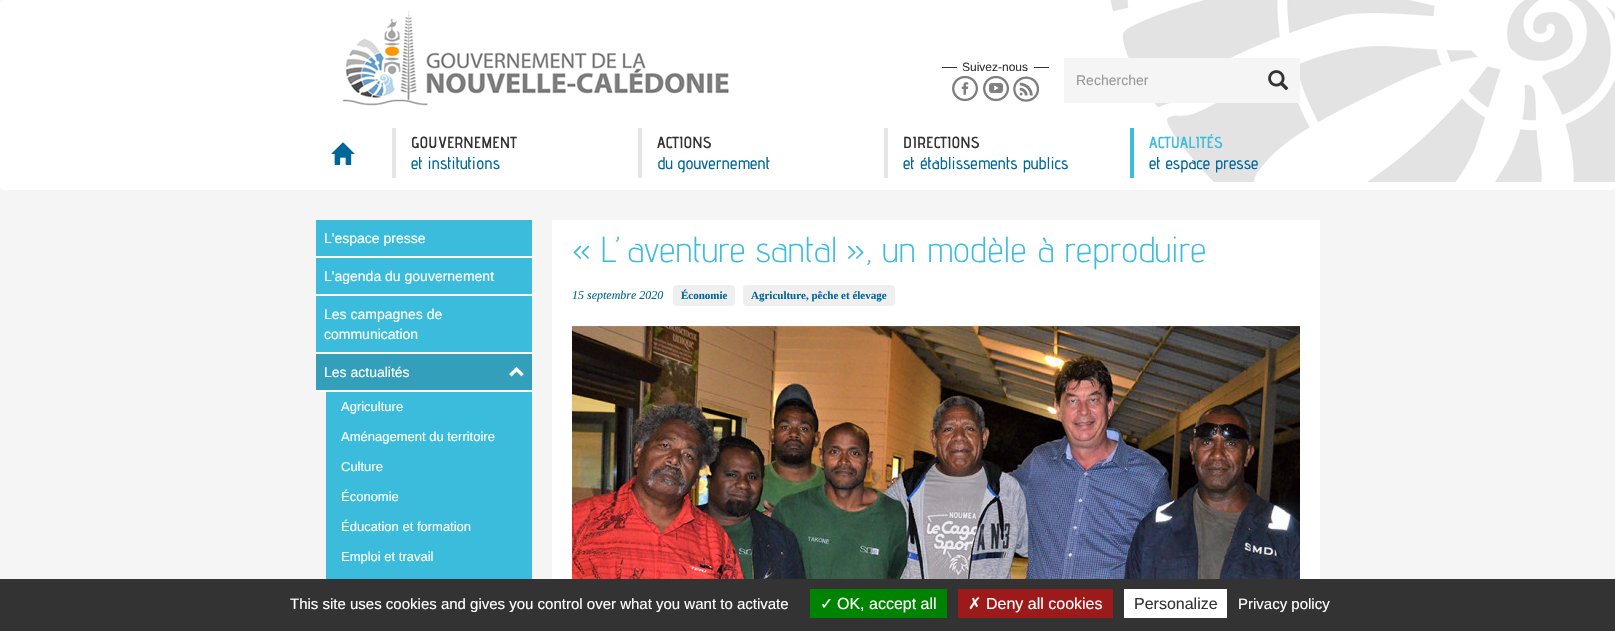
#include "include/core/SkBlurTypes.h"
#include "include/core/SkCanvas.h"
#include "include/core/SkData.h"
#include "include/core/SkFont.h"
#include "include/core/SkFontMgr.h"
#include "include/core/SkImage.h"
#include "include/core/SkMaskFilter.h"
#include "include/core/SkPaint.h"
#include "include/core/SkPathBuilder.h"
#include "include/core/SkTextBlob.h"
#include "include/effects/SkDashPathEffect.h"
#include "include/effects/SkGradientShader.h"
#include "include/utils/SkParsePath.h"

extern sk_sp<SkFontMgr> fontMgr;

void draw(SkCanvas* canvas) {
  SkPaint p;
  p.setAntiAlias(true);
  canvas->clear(SkColorSetRGB(245, 245, 245));
  p.setColor(SK_ColorWHITE);
  canvas->drawRoundRect(SkRect::MakeLTRB(0, 0, 1615, 190), 4, 4, p);
  canvas->drawImageRect(SkImages::DeferredFromEncodedData(SkData::MakeFromFileName("images/1.png")), SkRect::MakeLTRB(342, 10, 729, 106), SkSamplingOptions());
  p.setColor(SkColorSetRGB(51, 51, 51));
  canvas->drawRect(SkRect::MakeLTRB(942, 67, 957, 68), p);
  canvas->drawRect(SkRect::MakeLTRB(1034, 67, 1049, 68), p);
  canvas->drawImageRect(SkImages::DeferredFromEncodedData(SkData::MakeFromFileName("images/2.png")), SkRect::MakeLTRB(952, 76, 978, 101), SkSamplingOptions());
  canvas->drawImageRect(SkImages::DeferredFromEncodedData(SkData::MakeFromFileName("images/3.png")), SkRect::MakeLTRB(983, 76, 1009, 101), SkSamplingOptions());
  canvas->drawImageRect(SkImages::DeferredFromEncodedData(SkData::MakeFromFileName("images/4.png")), SkRect::MakeLTRB(1013, 76, 1039, 102), SkSamplingOptions());
  canvas->drawImageRect(SkImages::DeferredFromEncodedData(SkData::MakeFromFileName("images/6.png")), SkRect::MakeLTRB(1110, 0, 1615, 182), SkSamplingOptions());
  p.setColor(SkColorSetRGB(245, 245, 245));
  canvas->drawRect(SkRect::MakeLTRB(1064, 58, 1300, 103), p);
  canvas->drawImageRect(SkImages::DeferredFromEncodedData(SkData::MakeFromFileName("images/5.png")), SkRect::MakeLTRB(1268, 70, 1289, 91), SkSamplingOptions());
  canvas->drawImageRect(SkImages::DeferredFromEncodedData(SkData::MakeFromFileName("images/7.png")), SkRect::MakeLTRB(331, 142, 355, 165), SkSamplingOptions());
  p.setColor(SkColorSetRGB(229, 229, 229));
  canvas->drawRect(SkRect::MakeLTRB(392, 128, 396, 178), p);
  canvas->drawRect(SkRect::MakeLTRB(638, 128, 642, 178), p);
  canvas->drawRect(SkRect::MakeLTRB(884, 128, 888, 178), p);
  p.setColor(SkColorSetRGB(60, 188, 221));
  canvas->drawRect(SkRect::MakeLTRB(1130, 128, 1134, 178), p);
  canvas->drawRect(SkRect::MakeLTRB(316, 220, 532, 256), p);
  p.setColor(SK_ColorWHITE);
  canvas->drawRect(SkRect::MakeLTRB(316, 256, 532, 258), p);
  p.setColor(SkColorSetRGB(60, 188, 221));
  canvas->drawRect(SkRect::MakeLTRB(316, 258, 532, 294), p);
  p.setColor(SK_ColorWHITE);
  canvas->drawRect(SkRect::MakeLTRB(316, 294, 532, 296), p);
  p.setColor(SkColorSetRGB(60, 188, 221));
  canvas->drawRect(SkRect::MakeLTRB(316, 296, 532, 352), p);
  p.setColor(SK_ColorWHITE);
  canvas->drawRect(SkRect::MakeLTRB(316, 352, 532, 354), p);
  p.setColor(SkColorSetRGB(51, 159, 186));
  canvas->drawRect(SkRect::MakeLTRB(316, 354, 532, 390), p);
  canvas->drawImageRect(SkImages::DeferredFromEncodedData(SkData::MakeFromFileName("images/8.png")), SkRect::MakeLTRB(509, 366, 524, 377), SkSamplingOptions());
  p.setColor(SK_ColorWHITE);
  canvas->drawRect(SkRect::MakeLTRB(316, 390, 532, 392), p);
  p.setColor(SkColorSetRGB(60, 188, 221));
  canvas->drawRect(SkRect::MakeLTRB(326, 392, 532, 579), p);
  p.setColor(SK_ColorWHITE);
  canvas->drawRect(SkRect::MakeLTRB(552, 220, 1320, 579), p);
  p.setColor(SkColorSetRGB(239, 239, 239));
  canvas->drawRoundRect(SkRect::MakeLTRB(673, 285, 735, 306), 4, 4, p);
  canvas->drawRoundRect(SkRect::MakeLTRB(743, 285, 895, 306), 4, 4, p);
  canvas->drawImageRect(SkImages::DeferredFromEncodedData(SkData::MakeFromFileName("images/9.png")), SkRect::MakeLTRB(572, 326, 1300, 579), SkSamplingOptions());
  p.setColor(SkColorSetRGB(51, 51, 51));
  canvas->drawRect(SkRect::MakeLTRB(0, 579, 1615, 631), p);
  p.setColor(SkColorSetRGB(0, 131, 0));
  canvas->drawRect(SkRect::MakeLTRB(810, 589, 947, 618), p);
  p.setColor(SkColorSetRGB(156, 26, 26));
  canvas->drawRect(SkRect::MakeLTRB(958, 589, 1113, 618), p);
  p.setColor(SK_ColorWHITE);
  canvas->drawRect(SkRect::MakeLTRB(1124, 589, 1227, 618), p);
  SkFont font1(fontMgr->matchFamilyStyle("Liberation Sans", SkFontStyle::Normal()), 12);
  font1.setSubpixel(true);
  p.setColor(SkColorSetRGB(51, 51, 51));
  canvas->drawString("Suivez-nous", 962, 71, font1, p);
  SkFont font2(fontMgr->matchFamilyStyle("Liberation Sans", SkFontStyle::Normal()), 14);
  font2.setSubpixel(true);
  p.setColor(SkColorSetRGB(153, 153, 153));
  canvas->drawString("Rechercher", 1076, 85, font2, p);
  SkFont font3(fontMgr->matchFamilyStyle("Advent Pro", SkFontStyle(600, SkFontStyle::kNormal_Width, SkFontStyle::kUpright_Slant)), 16);
  font3.setSubpixel(true);
  p.setColor(SkColorSetRGB(51, 51, 51));
  canvas->drawString("GOUVERNEMENT", 411, 148, font3, p);
  SkFont font4(fontMgr->matchFamilyStyle("Advent Pro", SkFontStyle(500, SkFontStyle::kNormal_Width, SkFontStyle::kUpright_Slant)), 17);
  font4.setSubpixel(true);
  p.setColor(SkColorSetRGB(0, 102, 153));
  canvas->drawString("et institutions", 411, 169, font4, p);
  p.setColor(SkColorSetRGB(51, 51, 51));
  canvas->drawString("ACTIONS", 657, 148, font3, p);
  p.setColor(SkColorSetRGB(0, 102, 153));
  canvas->drawString("du gouvernement", 657, 169, font4, p);
  p.setColor(SkColorSetRGB(51, 51, 51));
  canvas->drawString("DIRECTIONS", 903, 148, font3, p);
  p.setColor(SkColorSetRGB(0, 102, 153));
  canvas->drawString("et établissements publics", 903, 169, font4, p);
  p.setColor(SkColorSetRGB(60, 188, 221));
  canvas->drawString("ACTUALITÉS", 1149, 148, font3, p);
  p.setColor(SkColorSetRGB(0, 102, 153));
  canvas->drawString("et espace presse", 1149, 169, font4, p);
  p.setColor(SK_ColorWHITE);
  canvas->drawString("L'espace presse", 324, 243, font2, p);
  canvas->drawString("L'agenda du gouvernement", 324, 281, font2, p);
  canvas->drawString("Les campagnes de", 324, 319, font2, p);
  canvas->drawString("communication", 324, 339, font2, p);
  canvas->drawString("Les actualités", 324, 377, font2, p);
  SkFont font5(fontMgr->matchFamilyStyle("Liberation Sans", SkFontStyle::Normal()), 13);
  font5.setSubpixel(true);
  canvas->drawString("Agriculture", 341, 411, font5, p);
  canvas->drawString("Aménagement du territoire", 341, 441, font5, p);
  canvas->drawString("Culture", 341, 471, font5, p);
  canvas->drawString("Économie", 341, 501, font5, p);
  canvas->drawString("Éducation et formation", 341, 531, font5, p);
  canvas->drawString("Emploi et travail", 341, 561, font5, p);
  SkFont font6(fontMgr->matchFamilyStyle("Advent Pro", SkFontStyle(300, SkFontStyle::kNormal_Width, SkFontStyle::kUpright_Slant)), 36);
  font6.setSubpixel(true);
  p.setColor(SkColorSetRGB(60, 188, 221));
  canvas->drawString("« L’aventure santal », un modèle à reproduire", 572, 262, font6, p);
  SkFont font7(fontMgr->matchFamilyStyle("Liberation Serif", SkFontStyle::Italic()), 12);
  font7.setSubpixel(true);
  p.setColor(SkColorSetRGB(0, 102, 153));
  canvas->drawString("15 septembre 2020", 572, 299, font7, p);
  SkFont font8(fontMgr->matchFamilyStyle("Liberation Serif", SkFontStyle::Bold()), 11);
  font8.setSubpixel(true);
  canvas->drawString("Économie", 681, 299, font8, p);
  canvas->drawString("Agriculture, pêche et élevage", 751, 299, font8, p);
  SkFont font9(fontMgr->matchFamilyStyle("Liberation Sans", SkFontStyle::Normal()), 15);
  font9.setSubpixel(true);
  p.setColor(SK_ColorWHITE);
  canvas->drawString("This site uses cookies and gives you control over what you want to activate", 290, 609, font9, p);
  SkFont font10(fontMgr->matchFamilyStyle("DejaVu Sans", SkFontStyle::Normal()), 16);
  font10.setSubpixel(true);
  canvas->drawString("✓", 820, 609, font10, p);
  SkFont font11(fontMgr->matchFamilyStyle("Liberation Sans", SkFontStyle::Normal()), 16);
  font11.setSubpixel(true);
  canvas->drawString("OK, accept all", 837, 609, font11, p);
  canvas->drawString("✗", 968, 609, font10, p);
  canvas->drawString("Deny all cookies", 986, 609, font11, p);
  p.setColor(SkColorSetRGB(51, 51, 51));
  canvas->drawString("Personalize", 1134, 609, font11, p);
  p.setColor(SK_ColorWHITE);
  canvas->drawString("Privacy policy", 1238, 609, font9, p);
}
